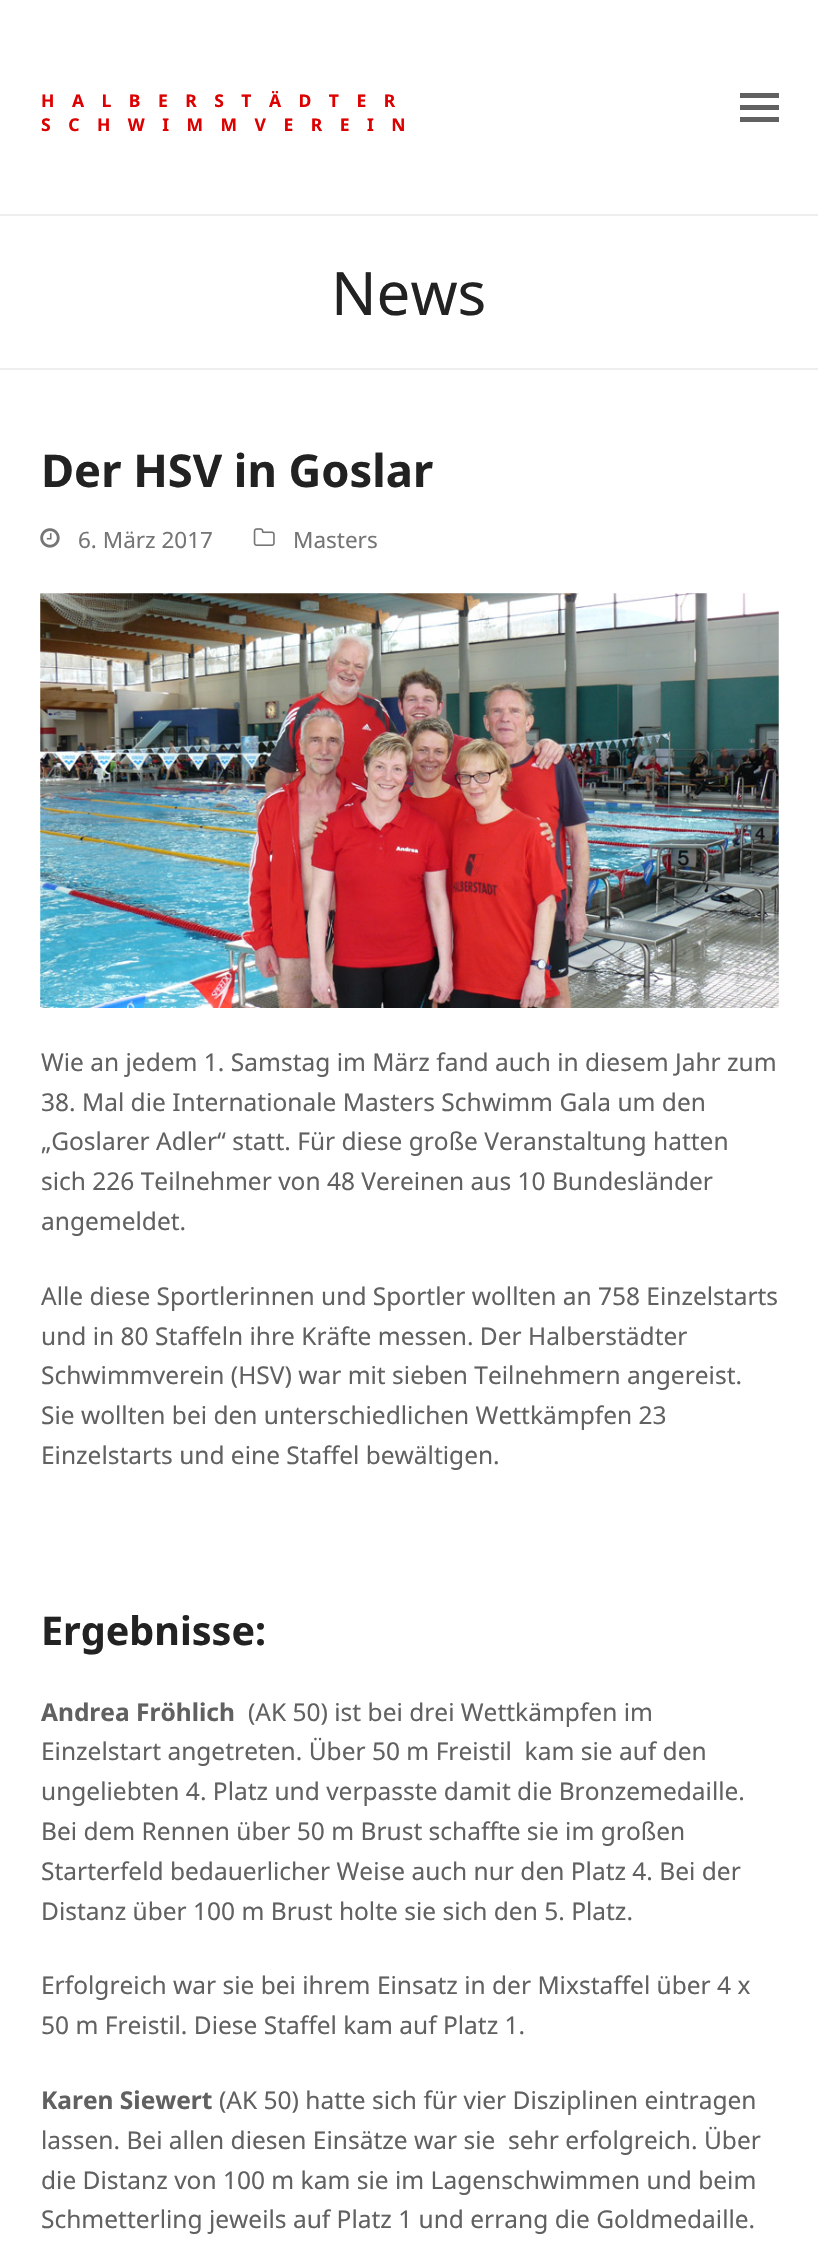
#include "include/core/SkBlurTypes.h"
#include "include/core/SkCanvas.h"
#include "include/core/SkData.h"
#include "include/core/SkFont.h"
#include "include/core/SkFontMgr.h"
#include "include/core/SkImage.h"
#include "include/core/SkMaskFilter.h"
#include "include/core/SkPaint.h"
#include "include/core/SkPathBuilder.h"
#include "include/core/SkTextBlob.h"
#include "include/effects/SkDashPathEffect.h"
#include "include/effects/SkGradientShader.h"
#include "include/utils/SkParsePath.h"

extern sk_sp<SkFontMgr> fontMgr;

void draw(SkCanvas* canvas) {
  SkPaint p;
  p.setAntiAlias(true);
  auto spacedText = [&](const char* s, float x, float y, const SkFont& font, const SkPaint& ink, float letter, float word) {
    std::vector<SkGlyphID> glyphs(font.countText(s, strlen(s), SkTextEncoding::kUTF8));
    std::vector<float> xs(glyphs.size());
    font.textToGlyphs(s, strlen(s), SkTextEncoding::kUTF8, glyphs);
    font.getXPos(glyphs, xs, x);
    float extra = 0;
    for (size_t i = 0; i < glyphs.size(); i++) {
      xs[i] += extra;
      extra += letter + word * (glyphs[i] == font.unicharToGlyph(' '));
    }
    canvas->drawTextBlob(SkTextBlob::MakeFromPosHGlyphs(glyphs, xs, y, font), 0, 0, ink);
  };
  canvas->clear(SK_ColorWHITE);
  p.setColor(SkColorSetRGB(97, 97, 97));
  canvas->drawRect(SkRect::MakeLTRB(740, 105, 779, 110), p);
  canvas->drawRect(SkRect::MakeLTRB(740, 93, 779, 98), p);
  canvas->drawRect(SkRect::MakeLTRB(740, 117, 779, 122), p);
  p.setColor(SkColorSetRGB(238, 238, 238));
  canvas->drawRect(SkRect::MakeLTRB(0, 214, 818, 216), p);
  canvas->drawRect(SkRect::MakeLTRB(0, 368, 818, 370), p);
  canvas->drawImageRect(SkImages::DeferredFromEncodedData(SkData::MakeFromFileName("images/1.png")), SkRect::MakeLTRB(40, 528, 60, 548), SkSamplingOptions());
  canvas->drawImageRect(SkImages::DeferredFromEncodedData(SkData::MakeFromFileName("images/2.png")), SkRect::MakeLTRB(253, 528, 275, 546), SkSamplingOptions());
  canvas->drawImageRect(SkImages::DeferredFromEncodedData(SkData::MakeFromFileName("images/3.png")), SkRect::MakeLTRB(40, 593, 779, 1008), SkSamplingOptions());
  SkFont font1(fontMgr->matchFamilyStyle("Noto Sans", SkFontStyle::Bold()), 17.5f);
  font1.setSubpixel(true);
  p.setColor(SkColorSetRGB(221, 0, 0));
  spacedText("HALBERSTÄDTER", 41, 107, font1, p, 17.5f, 0);
  spacedText("SCHWIMMVEREIN", 41, 131, font1, p, 17.5f, 0);
  SkFont font2(fontMgr->matchFamilyStyle("Noto Sans", SkFontStyle::Normal()), 60);
  font2.setSubpixel(true);
  p.setColor(SkColorSetRGB(34, 34, 34));
  canvas->drawString("News", 331, 315, font2, p);
  SkFont font3(fontMgr->matchFamilyStyle("Noto Sans", SkFontStyle::Bold()), 45.25f);
  font3.setSubpixel(true);
  canvas->drawString("Der HSV in Goslar", 41, 487, font3, p);
  SkFont font4(fontMgr->matchFamilyStyle("Noto Sans", SkFontStyle::Normal()), 22.5f);
  font4.setSubpixel(true);
  p.setColor(SkColorSetRGB(117, 117, 117));
  canvas->drawString("6. März 2017", 78, 548, font4, p);
  canvas->drawString("Masters", 293, 548, font4, p);
  SkFont font5(fontMgr->matchFamilyStyle("Noto Sans", SkFontStyle::Normal()), 24.5f);
  font5.setSubpixel(true);
  p.setColor(SkColorSetRGB(97, 97, 97));
  canvas->drawString("Wie an jedem 1. Samstag im März fand auch in diesem Jahr zum", 41, 1071, font5, p);
  canvas->drawString("38. Mal die Internationale Masters Schwimm Gala um den", 41, 1111, font5, p);
  canvas->drawString("„Goslarer Adler“ statt. Für diese große Veranstaltung hatten", 41, 1150, font5, p);
  canvas->drawString("sich 226 Teilnehmer von 48 Vereinen aus 10 Bundesländer", 41, 1190, font5, p);
  canvas->drawString("angemeldet.", 41, 1230, font5, p);
  canvas->drawString("Alle diese Sportlerinnen und Sportler wollten an 758 Einzelstarts", 41, 1305, font5, p);
  canvas->drawString("und in 80 Staffeln ihre Kräfte messen. Der Halberstädter", 41, 1345, font5, p);
  canvas->drawString("Schwimmverein (HSV) war mit sieben Teilnehmern angereist.", 41, 1384, font5, p);
  canvas->drawString("Sie wollten bei den unterschiedlichen Wettkämpfen 23", 41, 1424, font5, p);
  canvas->drawString("Einzelstarts und eine Staffel bewältigen.", 41, 1464, font5, p);
  SkFont font6(fontMgr->matchFamilyStyle("Noto Sans", SkFontStyle::Bold()), 39.5f);
  font6.setSubpixel(true);
  p.setColor(SkColorSetRGB(34, 34, 34));
  canvas->drawString("Ergebnisse:", 41, 1645, font6, p);
  SkFont font7(fontMgr->matchFamilyStyle("Noto Sans", SkFontStyle::Bold()), 24.5f);
  font7.setSubpixel(true);
  p.setColor(SkColorSetRGB(97, 97, 97));
  canvas->drawString("Andrea Fröhlich", 41, 1721, font7, p);
  canvas->drawString("(AK 50) ist bei drei Wettkämpfen im", 248, 1721, font5, p);
  canvas->drawString("Einzelstart angetreten. Über 50 m Freistil  kam sie auf den", 41, 1760, font5, p);
  canvas->drawString("ungeliebten 4. Platz und verpasste damit die Bronzemedaille.", 41, 1800, font5, p);
  canvas->drawString("Bei dem Rennen über 50 m Brust schaffte sie im großen", 41, 1840, font5, p);
  canvas->drawString("Starterfeld bedauerlicher Weise auch nur den Platz 4. Bei der", 41, 1880, font5, p);
  canvas->drawString("Distanz über 100 m Brust holte sie sich den 5. Platz.", 41, 1920, font5, p);
  canvas->drawString("Erfolgreich war sie bei ihrem Einsatz in der Mixstaffel über 4 x", 41, 1994, font5, p);
  canvas->drawString("50 m Freistil. Diese Staffel kam auf Platz 1.", 41, 2034, font5, p);
  canvas->drawString("Karen Siewert", 41, 2109, font7, p);
  canvas->drawString("(AK 50) hatte sich für vier Disziplinen eintragen", 219, 2109, font5, p);
  canvas->drawString("lassen. Bei allen diesen Einsätze war sie  sehr erfolgreich. Über", 41, 2149, font5, p);
  canvas->drawString("die Distanz von 100 m kam sie im Lagenschwimmen und beim", 41, 2189, font5, p);
  canvas->drawString("Schmetterling jeweils auf Platz 1 und errang die Goldmedaille.", 41, 2228, font5, p);
}
